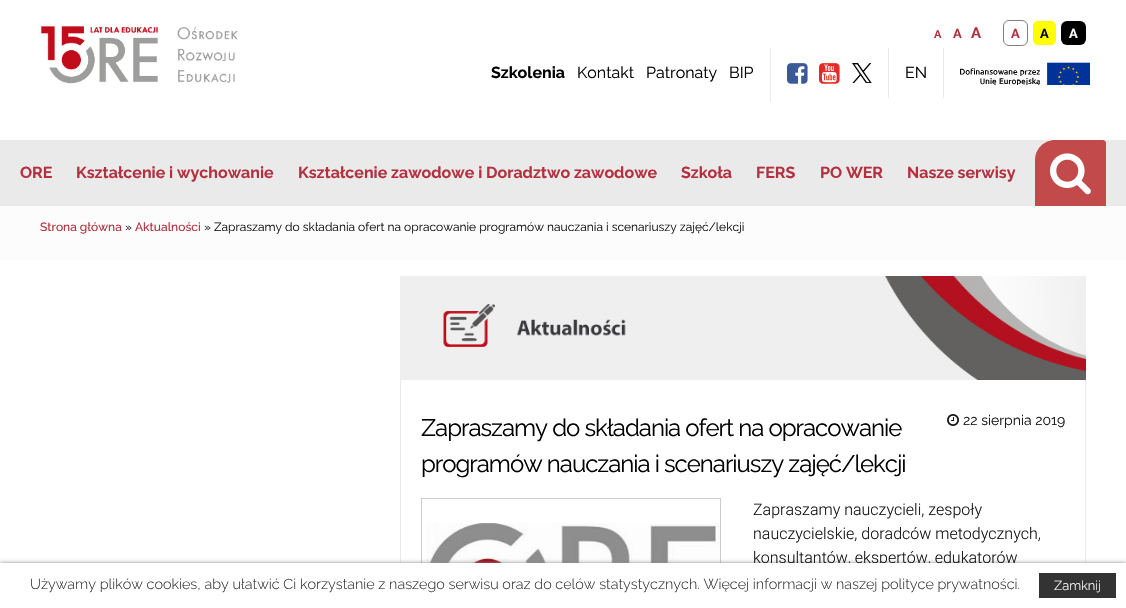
#include "include/core/SkBlurTypes.h"
#include "include/core/SkCanvas.h"
#include "include/core/SkData.h"
#include "include/core/SkFont.h"
#include "include/core/SkFontMgr.h"
#include "include/core/SkImage.h"
#include "include/core/SkMaskFilter.h"
#include "include/core/SkPaint.h"
#include "include/core/SkPathBuilder.h"
#include "include/core/SkTextBlob.h"
#include "include/effects/SkDashPathEffect.h"
#include "include/effects/SkGradientShader.h"
#include "include/utils/SkParsePath.h"

extern sk_sp<SkFontMgr> fontMgr;

void draw(SkCanvas* canvas) {
  SkPaint p;
  p.setAntiAlias(true);
  auto spacedText = [&](const char* s, float x, float y, const SkFont& font, const SkPaint& ink, float letter, float word) {
    std::vector<SkGlyphID> glyphs(font.countText(s, strlen(s), SkTextEncoding::kUTF8));
    std::vector<float> xs(glyphs.size());
    font.textToGlyphs(s, strlen(s), SkTextEncoding::kUTF8, glyphs);
    font.getXPos(glyphs, xs, x);
    float extra = 0;
    for (size_t i = 0; i < glyphs.size(); i++) {
      xs[i] += extra;
      extra += letter + word * (glyphs[i] == font.unicharToGlyph(' '));
    }
    canvas->drawTextBlob(SkTextBlob::MakeFromPosHGlyphs(glyphs, xs, y, font), 0, 0, ink);
  };
  canvas->clear(SK_ColorWHITE);
  p.setStyle(SkPaint::kStroke_Style);
  p.setStrokeWidth(1);
  p.setColor(SkColorSetRGB(128, 128, 128));
  canvas->drawRoundRect(SkRect::MakeLTRB(1003.5f, 20.5f, 1027.5f, 45.5f), 5.5f, 5.5f, p);
  p.setStyle(SkPaint::kFill_Style);
  p.setColor(SkColorSetRGB(255, 255, 0));
  canvas->drawRoundRect(SkRect::MakeLTRB(1032.5f, 20.5f, 1056.5f, 45.5f), 5.5f, 5.5f, p);
  p.setStyle(SkPaint::kStroke_Style);
  p.setColor(SK_ColorWHITE);
  canvas->drawRoundRect(SkRect::MakeLTRB(1032.5f, 20.5f, 1056.5f, 45.5f), 5.5f, 5.5f, p);
  p.setStyle(SkPaint::kFill_Style);
  p.setColor(SK_ColorBLACK);
  canvas->drawRoundRect(SkRect::MakeLTRB(1061, 21, 1086, 45), 6, 6, p);
  canvas->drawImageRect(SkImages::DeferredFromEncodedData(SkData::MakeFromFileName("images/1.png")), SkRect::MakeLTRB(41, 26, 238, 84), SkSamplingOptions());
  p.setColor(SkColorSetRGB(234, 234, 234));
  canvas->drawRect(SkRect::MakeLTRB(770, 48, 771, 102), p);
  canvas->drawImageRect(SkImages::DeferredFromEncodedData(SkData::MakeFromFileName("images/2.png")), SkRect::MakeLTRB(787, 63, 808, 84), SkSamplingOptions());
  canvas->drawImageRect(SkImages::DeferredFromEncodedData(SkData::MakeFromFileName("images/3.png")), SkRect::MakeLTRB(819, 63, 840, 84), SkSamplingOptions());
  canvas->drawRect(SkRect::MakeLTRB(888, 48, 889, 98), p);
  canvas->drawImageRect(SkImages::DeferredFromEncodedData(SkData::MakeFromFileName("images/4.png")), SkRect::MakeLTRB(852, 63, 872, 83), SkSamplingOptions());
  canvas->drawRect(SkRect::MakeLTRB(943, 48, 944, 98), p);
  canvas->drawImageRect(SkImages::DeferredFromEncodedData(SkData::MakeFromFileName("images/5.png")), SkRect::MakeLTRB(960, 62, 1090, 85), SkSamplingOptions());
  canvas->drawRect(SkRect::MakeLTRB(0, 140, 1126, 206), p);
  p.setColor(SkColorSetRGB(194, 74, 74));
  canvas->drawPath(SkPathBuilder().moveTo(1055, 140).lineTo(1103, 140).cubicTo(1104.5f, 140, 1106, 141.5f, 1106, 143).lineTo(1106, 206).lineTo(1035, 206).lineTo(1035, 160).cubicTo(1035, 149, 1044, 140, 1055, 140).close().detach(), p);
  canvas->drawImageRect(SkImages::DeferredFromEncodedData(SkData::MakeFromFileName("images/6.png")), SkRect::MakeLTRB(1050, 153, 1091, 195), SkSamplingOptions());
  p.setColor(SkColorSetRGB(252, 252, 252));
  canvas->drawRect(SkRect::MakeLTRB(0, 206, 1126, 260), p);
  p.setStyle(SkPaint::kStroke_Style);
  p.setColor(SkColorSetRGB(234, 234, 234));
  canvas->drawRect(SkRect::MakeLTRB(400.5f, 276.5f, 1085.5f, 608.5f), p);
  canvas->drawImageRect(SkImages::DeferredFromEncodedData(SkData::MakeFromFileName("images/7.png")), SkRect::MakeLTRB(400, 276, 1086, 380), SkSamplingOptions());
  canvas->drawImageRect(SkImages::DeferredFromEncodedData(SkData::MakeFromFileName("images/8.png")), SkRect::MakeLTRB(947, 414, 959, 426), SkSamplingOptions());
  p.setColor(SkColorSetRGB(204, 204, 204));
  canvas->drawRect(SkRect::MakeLTRB(421.5f, 498.5f, 720.5f, 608.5f), p);
  canvas->drawImageRect(SkImages::DeferredFromEncodedData(SkData::MakeFromFileName("images/9.png")), SkRect::MakeLTRB(426, 523, 720, 563), SkSamplingOptions());
  p.setStyle(SkPaint::kFill_Style);
  p.setColor(SkColorSetRGB(136, 136, 136));
  p.setMaskFilter(SkMaskFilter::MakeBlur(kNormal_SkBlurStyle, 2));
  canvas->drawRect(SkRect::MakeLTRB(0, 563, 1126, 608), p);
  p.setMaskFilter(nullptr);
  SkFont font1(fontMgr->matchFamilyStyle("Raleway", SkFontStyle::Bold()), 11);
  font1.setSubpixel(true);
  p.setColor(SkColorSetRGB(181, 48, 62));
  canvas->drawString("A", 934, 38, font1, p);
  SkFont font2(fontMgr->matchFamilyStyle("Raleway", SkFontStyle::Bold()), 13);
  font2.setSubpixel(true);
  canvas->drawString("A", 953, 38, font2, p);
  SkFont font3(fontMgr->matchFamilyStyle("Raleway", SkFontStyle::Bold()), 15);
  font3.setSubpixel(true);
  canvas->drawString("A", 971, 38, font3, p);
  canvas->drawString("A", 1011, 38, font2, p);
  p.setColor(SK_ColorBLACK);
  canvas->drawString("A", 1040, 38, font2, p);
  p.setColor(SK_ColorWHITE);
  canvas->drawString("A", 1069, 38, font2, p);
  SkFont font4(fontMgr->matchFamilyStyle("Raleway", SkFontStyle::Bold()), 16);
  font4.setSubpixel(true);
  p.setColor(SK_ColorBLACK);
  canvas->drawString("Szkolenia", 491, 78, font4, p);
  SkFont font5(fontMgr->matchFamilyStyle("Raleway", SkFontStyle::Normal()), 16);
  font5.setSubpixel(true);
  canvas->drawString("Kontakt", 577, 78, font5, p);
  canvas->drawString("Patronaty", 646, 78, font5, p);
  canvas->drawString("BIP", 729, 78, font5, p);
  canvas->drawString("EN", 905, 78, font5, p);
  p.setColor(SkColorSetRGB(181, 48, 62));
  canvas->drawString("ORE", 20, 178, font4, p);
  canvas->drawString("Kształcenie i wychowanie", 76, 178, font4, p);
  canvas->drawString("Kształcenie zawodowe i Doradztwo zawodowe", 298, 178, font4, p);
  canvas->drawString("Szkoła", 681, 178, font4, p);
  canvas->drawString("FERS", 756, 178, font4, p);
  canvas->drawString("PO WER", 820, 178, font4, p);
  canvas->drawString("Nasze serwisy", 907, 178, font4, p);
  SkFont font6(fontMgr->matchFamilyStyle("Raleway", SkFontStyle(500, SkFontStyle::kNormal_Width, SkFontStyle::kUpright_Slant)), 12);
  font6.setSubpixel(true);
  canvas->drawString("Strona główna", 40, 231, font6, p);
  SkFont font7(fontMgr->matchFamilyStyle("Raleway", SkFontStyle::Normal()), 12);
  font7.setSubpixel(true);
  p.setColor(SkColorSetRGB(21, 21, 21));
  canvas->drawString("»", 125, 231, font7, p);
  p.setColor(SkColorSetRGB(181, 48, 62));
  canvas->drawString("Aktualności", 135, 231, font6, p);
  p.setColor(SkColorSetRGB(21, 21, 21));
  canvas->drawString("» Zapraszamy do składania ofert na opracowanie programów nauczania i scenariuszy zajęć/lekcji", 204, 231, font7, p);
  SkFont font8(fontMgr->matchFamilyStyle("Raleway", SkFontStyle::Normal()), 24);
  font8.setSubpixel(true);
  p.setColor(SK_ColorBLACK);
  spacedText("Zapraszamy do składania ofert na opracowanie", 421, 436, font8, p, -1, 0);
  spacedText("programów nauczania i scenariuszy zajęć/lekcji", 421, 472, font8, p, -1, 0);
  SkFont font9(fontMgr->matchFamilyStyle("Raleway", SkFontStyle::Normal()), 14);
  font9.setSubpixel(true);
  p.setColor(SkColorSetRGB(21, 21, 21));
  canvas->drawString("22 sierpnia 2019", 963, 425, font9, p);
  SkFont font10(fontMgr->matchFamilyStyle("Roboto", SkFontStyle(300, SkFontStyle::kNormal_Width, SkFontStyle::kUpright_Slant)), 16);
  font10.setSubpixel(true);
  canvas->drawString("Zapraszamy nauczycieli, zespoły", 753, 515, font10, p);
  canvas->drawString("nauczycielskie, doradców metodycznych,", 753, 539, font10, p);
  canvas->drawString("konsultantów, ekspertów, edukatorów", 753, 563, font10, p);
  p.setColor(SK_ColorWHITE);
  canvas->drawRect(SkRect::MakeLTRB(0, 563, 1126, 608), p);
  SkFont font11(fontMgr->matchFamilyStyle("Raleway", SkFontStyle(300, SkFontStyle::kNormal_Width, SkFontStyle::kUpright_Slant)), 14.4f);
  font11.setSubpixel(true);
  p.setColor(SkColorSetRGB(51, 51, 51));
  canvas->drawString("Używamy plików cookies, aby ułatwić Ci korzystanie z naszego serwisu oraz do celów statystycznych. Więcej informacji w naszej polityce prywatności.", 30, 589, font11, p);
  canvas->drawRect(SkRect::MakeLTRB(1039, 573, 1116, 598), p);
  SkFont font12(fontMgr->matchFamilyStyle("Raleway", SkFontStyle(300, SkFontStyle::kNormal_Width, SkFontStyle::kUpright_Slant)), 13);
  font12.setSubpixel(true);
  p.setColor(SK_ColorWHITE);
  canvas->drawString("Zamknij", 1054, 590, font12, p);
}
